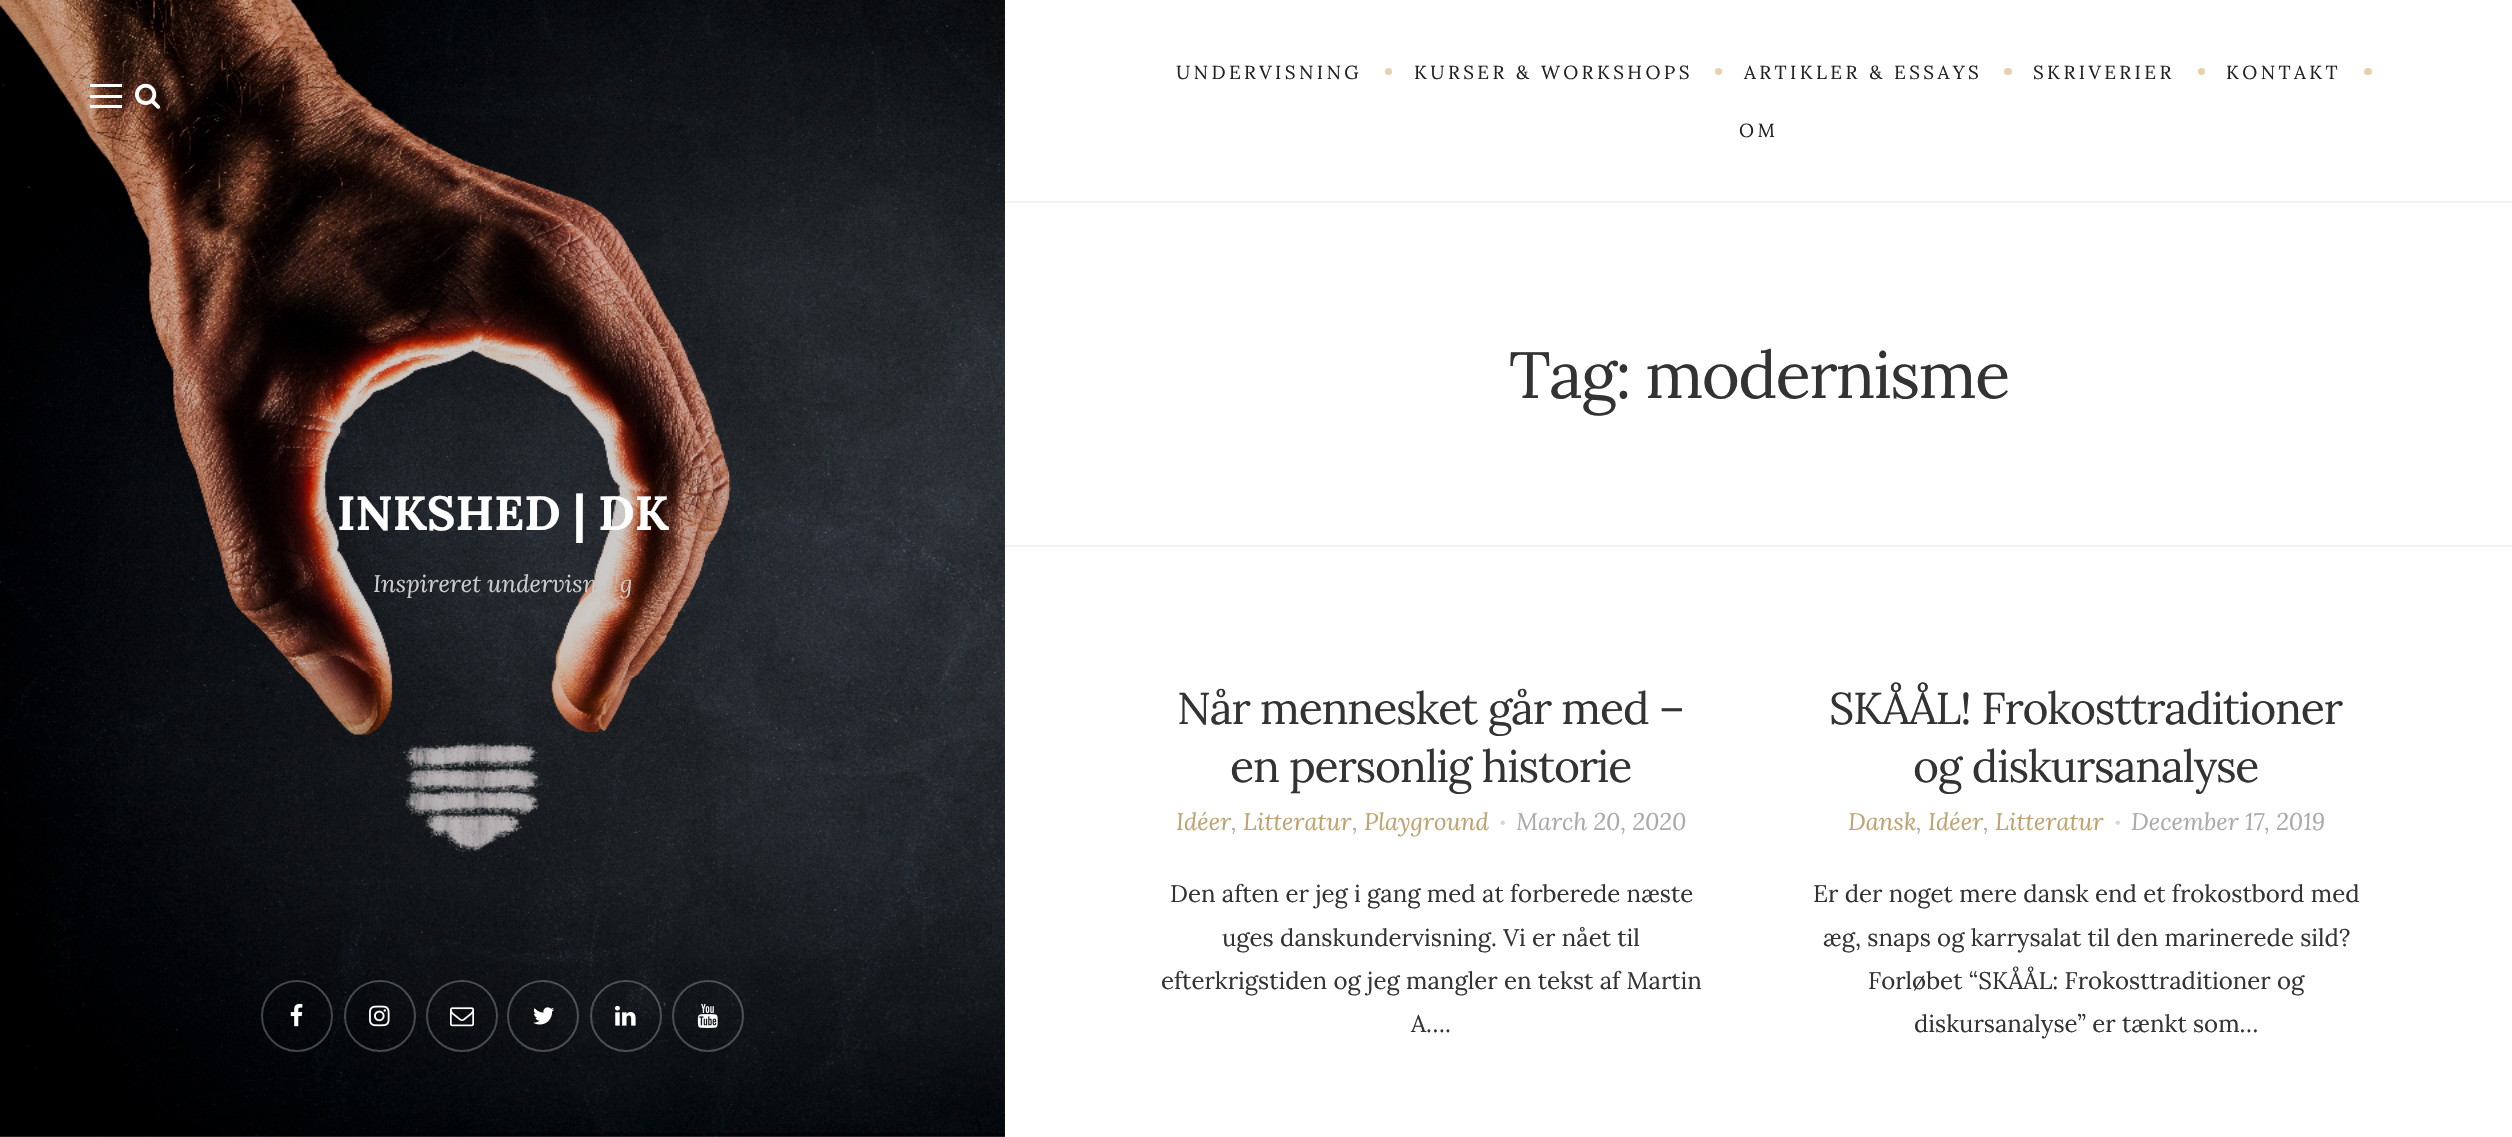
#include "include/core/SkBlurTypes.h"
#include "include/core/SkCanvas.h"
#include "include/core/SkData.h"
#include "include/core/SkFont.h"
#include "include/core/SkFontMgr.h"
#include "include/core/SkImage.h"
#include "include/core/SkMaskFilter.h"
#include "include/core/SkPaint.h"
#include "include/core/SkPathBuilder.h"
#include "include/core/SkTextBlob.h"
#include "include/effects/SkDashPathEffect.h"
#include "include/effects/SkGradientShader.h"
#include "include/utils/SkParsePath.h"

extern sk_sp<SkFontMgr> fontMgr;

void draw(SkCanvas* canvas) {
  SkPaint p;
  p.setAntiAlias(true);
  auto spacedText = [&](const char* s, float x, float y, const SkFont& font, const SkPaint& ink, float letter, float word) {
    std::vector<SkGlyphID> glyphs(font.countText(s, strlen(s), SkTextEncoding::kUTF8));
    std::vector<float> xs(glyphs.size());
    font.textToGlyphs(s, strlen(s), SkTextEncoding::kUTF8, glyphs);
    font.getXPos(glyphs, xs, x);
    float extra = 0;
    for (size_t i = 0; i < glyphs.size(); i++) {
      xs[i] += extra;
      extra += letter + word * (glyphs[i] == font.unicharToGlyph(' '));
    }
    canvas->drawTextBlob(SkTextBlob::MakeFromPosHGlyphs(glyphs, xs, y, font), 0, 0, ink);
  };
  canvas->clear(SK_ColorWHITE);
  canvas->drawImageRect(SkImages::DeferredFromEncodedData(SkData::MakeFromFileName("images/1.png")), SkRect::MakeLTRB(0, 0, 1005, 1137), SkSamplingOptions());
  p.setColor(SK_ColorWHITE);
  canvas->drawRect(SkRect::MakeLTRB(90, 95, 122, 98), p);
  canvas->drawRect(SkRect::MakeLTRB(90, 84, 122, 87), p);
  canvas->drawRect(SkRect::MakeLTRB(90, 105, 122, 108), p);
  canvas->drawImageRect(SkImages::DeferredFromEncodedData(SkData::MakeFromFileName("images/2.png")), SkRect::MakeLTRB(135, 83, 160, 109), SkSamplingOptions());
  p.setStyle(SkPaint::kStroke_Style);
  p.setStrokeWidth(2);
  p.setColor(SkColorSetARGB(64, 255, 255, 255));
  canvas->drawCircle(297, 1016, 35, p);
  canvas->drawImageRect(SkImages::DeferredFromEncodedData(SkData::MakeFromFileName("images/3.png")), SkRect::MakeLTRB(290, 1003, 303, 1027), SkSamplingOptions());
  canvas->drawCircle(380, 1016, 35, p);
  canvas->drawImageRect(SkImages::DeferredFromEncodedData(SkData::MakeFromFileName("images/4.png")), SkRect::MakeLTRB(369, 1005, 390, 1027), SkSamplingOptions());
  canvas->drawCircle(462, 1016, 35, p);
  canvas->drawImageRect(SkImages::DeferredFromEncodedData(SkData::MakeFromFileName("images/5.png")), SkRect::MakeLTRB(450, 1007, 474, 1027), SkSamplingOptions());
  canvas->drawCircle(543, 1016, 35, p);
  canvas->drawImageRect(SkImages::DeferredFromEncodedData(SkData::MakeFromFileName("images/6.png")), SkRect::MakeLTRB(533, 1007, 554, 1025), SkSamplingOptions());
  canvas->drawCircle(626, 1016, 35, p);
  canvas->drawImageRect(SkImages::DeferredFromEncodedData(SkData::MakeFromFileName("images/7.png")), SkRect::MakeLTRB(615, 1005, 636, 1026), SkSamplingOptions());
  canvas->drawCircle(708, 1016, 35, p);
  canvas->drawImageRect(SkImages::DeferredFromEncodedData(SkData::MakeFromFileName("images/8.png")), SkRect::MakeLTRB(697, 1003, 718, 1028), SkSamplingOptions());
  p.setStyle(SkPaint::kFill_Style);
  p.setColor(SkColorSetRGB(242, 242, 242));
  canvas->drawRect(SkRect::MakeLTRB(1005, 201, 2512, 203), p);
  p.setColor(SkColorSetRGB(229, 209, 173));
  canvas->drawCircle(1388.5f, 71.5f, 3.5f, p);
  canvas->drawCircle(1718.5f, 71.5f, 3.5f, p);
  canvas->drawRoundRect(SkRect::MakeLTRB(2004, 68, 2012, 75), 3.5f, 3.5f, p);
  canvas->drawCircle(2201.5f, 71.5f, 3.5f, p);
  canvas->drawRoundRect(SkRect::MakeLTRB(2364, 68, 2372, 75), 3.5f, 3.5f, p);
  p.setColor(SkColorSetRGB(242, 242, 242));
  canvas->drawRect(SkRect::MakeLTRB(1005, 545, 2512, 547), p);
  SkFont font1(fontMgr->matchFamilyStyle("Lora", SkFontStyle::Bold()), 48);
  font1.setSubpixel(true);
  p.setColor(SK_ColorWHITE);
  canvas->drawString("INKSHED | DK", 337, 530, font1, p);
  SkFont font2(fontMgr->matchFamilyStyle("Lora", SkFontStyle::Italic()), 24);
  font2.setSubpixel(true);
  p.setColor(SkColorSetRGB(204, 204, 204));
  canvas->drawString("Inspireret undervisn", 373, 592, font2, p);
  canvas->drawString("g", 620, 592, font2, p);
  SkFont font3(fontMgr->matchFamilyStyle("Lora", SkFontStyle::Normal()), 18.9f);
  font3.setSubpixel(true);
  p.setColor(SkColorSetRGB(34, 34, 34));
  spacedText("UNDERVISNING", 1176, 79, font3, p, 3.4f, 0);
  spacedText("KURSER & WORKSHOPS", 1414, 79, font3, p, 3.4f, 0);
  spacedText("ARTIKLER & ESSAYS", 1744, 79, font3, p, 3.4f, 0);
  spacedText("SKRIVERIER", 2033, 79, font3, p, 3.4f, 0);
  spacedText("KONTAKT", 2226, 79, font3, p, 3.4f, 0);
  spacedText("OM", 1739, 137, font3, p, 3.4f, 0);
  SkFont font4(fontMgr->matchFamilyStyle("Lora", SkFontStyle::Normal()), 65.25f);
  font4.setSubpixel(true);
  p.setColor(SkColorSetRGB(51, 51, 51));
  spacedText("Tag: modernisme", 1509, 398, font4, p, -1.75f, 0);
  SkFont font5(fontMgr->matchFamilyStyle("Lora", SkFontStyle::Normal()), 44.5f);
  font5.setSubpixel(true);
  spacedText("Når mennesket går med –", 1177, 724, font5, p, -1.2f, 0);
  spacedText("en personlig historie", 1230, 782, font5, p, -1.2f, 0);
  p.setColor(SkColorSetRGB(191, 163, 112));
  canvas->drawString("Idéer", 1176, 830, font2, p);
  canvas->drawString("Litteratur", 1243, 830, font2, p);
  canvas->drawString("Playground", 1364, 830, font2, p);
  SkFont font6(fontMgr->matchFamilyStyle("Lora", SkFontStyle::Italic()), 14);
  font6.setSubpixel(true);
  p.setColor(SkColorSetRGB(213, 213, 213));
  canvas->drawString("•", 1500, 828, font6, p);
  p.setColor(SkColorSetRGB(170, 170, 170));
  canvas->drawString("March 20, 2020", 1516, 830, font2, p);
  canvas->drawString(",", 1231, 830, font2, p);
  canvas->drawString(",", 1352, 830, font2, p);
  SkFont font7(fontMgr->matchFamilyStyle("Lora", SkFontStyle::Normal()), 24);
  font7.setSubpixel(true);
  p.setColor(SkColorSetRGB(51, 51, 51));
  canvas->drawString("Den aften er jeg i gang med at forberede næste", 1170, 902, font7, p);
  canvas->drawString("uges danskundervisning. Vi er nået til", 1222, 946, font7, p);
  canvas->drawString("efterkrigstiden og jeg mangler en tekst af Martin", 1161, 989, font7, p);
  canvas->drawString("A….", 1411, 1032, font7, p);
  spacedText("SKÅÅL! Frokosttraditioner", 1829, 724, font5, p, -1.2f, 0);
  spacedText("og diskursanalyse", 1913, 782, font5, p, -1.2f, 0);
  p.setColor(SkColorSetRGB(191, 163, 112));
  canvas->drawString("Dansk", 1848, 830, font2, p);
  canvas->drawString("Idéer", 1928, 830, font2, p);
  canvas->drawString("Litteratur", 1995, 830, font2, p);
  p.setColor(SkColorSetRGB(213, 213, 213));
  canvas->drawString("•", 2115, 828, font6, p);
  p.setColor(SkColorSetRGB(170, 170, 170));
  canvas->drawString("December 17, 2019", 2131, 830, font2, p);
  canvas->drawString(",", 1916, 830, font2, p);
  canvas->drawString(",", 1983, 830, font2, p);
  p.setColor(SkColorSetRGB(51, 51, 51));
  canvas->drawString("Er der noget mere dansk end et frokostbord med", 1813, 902, font7, p);
  canvas->drawString("æg, snaps og karrysalat til den marinerede sild?", 1823, 946, font7, p);
  canvas->drawString("Forløbet “SKÅÅL: Frokosttraditioner og", 1868, 989, font7, p);
  canvas->drawString("diskursanalyse” er tænkt som…", 1914, 1032, font7, p);
}
